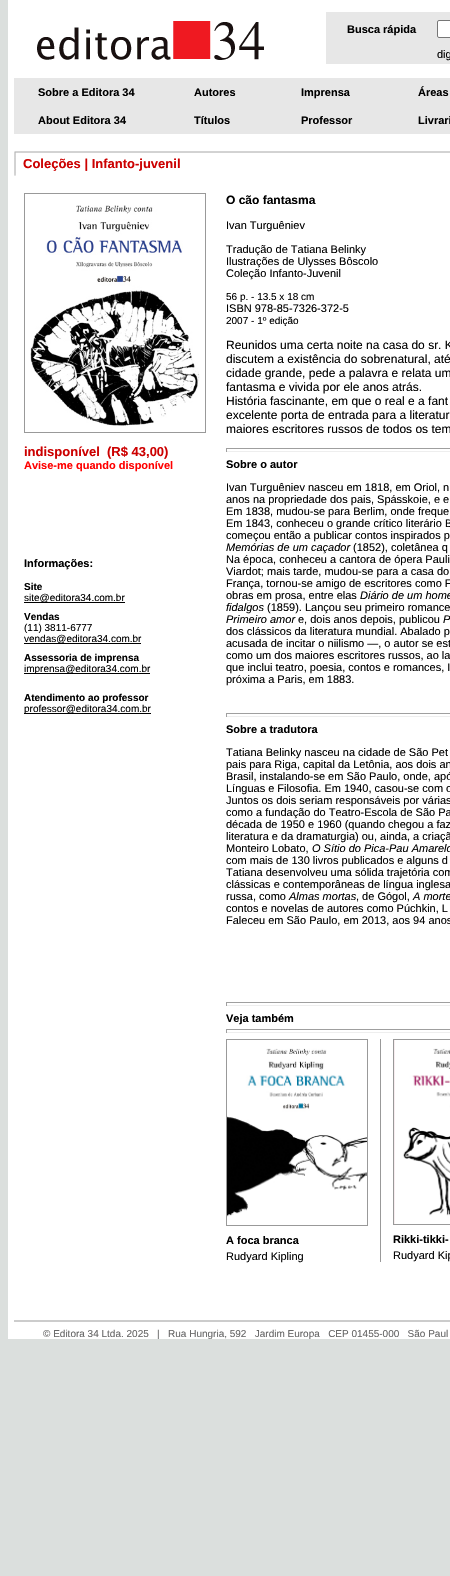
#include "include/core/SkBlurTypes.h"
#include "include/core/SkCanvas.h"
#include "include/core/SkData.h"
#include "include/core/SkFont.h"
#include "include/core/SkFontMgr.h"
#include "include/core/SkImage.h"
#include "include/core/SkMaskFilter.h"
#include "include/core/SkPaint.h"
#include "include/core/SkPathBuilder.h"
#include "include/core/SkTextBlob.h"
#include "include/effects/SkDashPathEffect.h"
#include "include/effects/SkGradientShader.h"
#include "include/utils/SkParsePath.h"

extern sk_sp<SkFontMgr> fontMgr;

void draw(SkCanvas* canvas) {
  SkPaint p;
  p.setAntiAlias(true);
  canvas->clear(SkColorSetRGB(219, 223, 221));
  p.setColor(SK_ColorWHITE);
  canvas->drawRect(SkRect::MakeLTRB(8, 0, 450, 1339), p);
  canvas->drawImageRect(SkImages::DeferredFromEncodedData(SkData::MakeFromFileName("images/1.png")), SkRect::MakeLTRB(37, 21, 264, 60), SkSamplingOptions());
  p.setColor(SkColorSetRGB(231, 231, 231));
  canvas->drawRect(SkRect::MakeLTRB(326, 12, 450, 64), p);
  p.setColor(SK_ColorWHITE);
  canvas->drawRoundRect(SkRect::MakeLTRB(437.5f, 20.5f, 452.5f, 37.5f), 1.5f, 1.5f, p);
  p.setStyle(SkPaint::kStroke_Style);
  p.setStrokeWidth(1);
  p.setColor(SkColorSetRGB(118, 118, 118));
  canvas->drawRoundRect(SkRect::MakeLTRB(437.5f, 20.5f, 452.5f, 37.5f), 1.5f, 1.5f, p);
  p.setStyle(SkPaint::kFill_Style);
  p.setColor(SkColorSetRGB(231, 231, 231));
  canvas->drawRect(SkRect::MakeLTRB(14, 78, 450, 134), p);
  canvas->drawImageRect(SkImages::DeferredFromEncodedData(SkData::MakeFromFileName("images/2.png")), SkRect::MakeLTRB(14, 151, 450, 176), SkSamplingOptions());
  p.setStyle(SkPaint::kStroke_Style);
  p.setColor(SkColorSetRGB(153, 153, 153));
  canvas->drawRect(SkRect::MakeLTRB(24.5f, 193.5f, 205.5f, 432.5f), p);
  canvas->drawImageRect(SkImages::DeferredFromEncodedData(SkData::MakeFromFileName("images/3.png")), SkRect::MakeLTRB(30, 205, 200, 426), SkSamplingOptions());
  p.setStyle(SkPaint::kFill_Style);
  p.setColor(SK_ColorBLACK);
  canvas->drawRect(SkRect::MakeLTRB(24, 602, 125, 603), p);
  canvas->drawRect(SkRect::MakeLTRB(24, 643, 141, 644), p);
  canvas->drawRect(SkRect::MakeLTRB(24, 673, 150, 674), p);
  canvas->drawRect(SkRect::MakeLTRB(24, 713, 151, 714), p);
  p.setColor(SkColorSetRGB(159, 159, 159));
  canvas->drawRect(SkRect::MakeLTRB(226, 448, 450, 449), p);
  p.setColor(SkColorSetRGB(238, 238, 238));
  canvas->drawRect(SkRect::MakeLTRB(226, 451, 450, 452), p);
  p.setColor(SkColorSetRGB(159, 159, 159));
  canvas->drawRect(SkRect::MakeLTRB(226, 448, 227, 452), p);
  canvas->drawRect(SkRect::MakeLTRB(226, 713, 450, 714), p);
  p.setColor(SkColorSetRGB(238, 238, 238));
  canvas->drawRect(SkRect::MakeLTRB(226, 716, 450, 717), p);
  p.setColor(SkColorSetRGB(159, 159, 159));
  canvas->drawRect(SkRect::MakeLTRB(226, 713, 227, 717), p);
  canvas->drawRect(SkRect::MakeLTRB(226, 1002, 450, 1003), p);
  p.setColor(SkColorSetRGB(238, 238, 238));
  canvas->drawRect(SkRect::MakeLTRB(226, 1005, 450, 1006), p);
  p.setColor(SkColorSetRGB(159, 159, 159));
  canvas->drawRect(SkRect::MakeLTRB(226, 1002, 227, 1006), p);
  canvas->drawRect(SkRect::MakeLTRB(226, 1029, 450, 1030), p);
  p.setColor(SkColorSetRGB(238, 238, 238));
  canvas->drawRect(SkRect::MakeLTRB(226, 1032, 450, 1033), p);
  p.setColor(SkColorSetRGB(159, 159, 159));
  canvas->drawRect(SkRect::MakeLTRB(226, 1029, 227, 1033), p);
  p.setStyle(SkPaint::kStroke_Style);
  p.setColor(SkColorSetRGB(153, 153, 153));
  canvas->drawRect(SkRect::MakeLTRB(226.5f, 1039.5f, 367.5f, 1225.5f), p);
  canvas->drawImageRect(SkImages::DeferredFromEncodedData(SkData::MakeFromFileName("images/4.png")), SkRect::MakeLTRB(227, 1048, 367, 1217), SkSamplingOptions());
  p.setStyle(SkPaint::kFill_Style);
  canvas->drawRect(SkRect::MakeLTRB(380, 1039, 381, 1262), p);
  p.setStyle(SkPaint::kStroke_Style);
  canvas->drawRect(SkRect::MakeLTRB(393.5f, 1039.5f, 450.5f, 1224.5f), p);
  canvas->drawImageRect(SkImages::DeferredFromEncodedData(SkData::MakeFromFileName("images/5.png")), SkRect::MakeLTRB(394, 1040, 450, 1224), SkSamplingOptions());
  p.setStyle(SkPaint::kFill_Style);
  p.setColor(SkColorSetRGB(204, 204, 204));
  canvas->drawRect(SkRect::MakeLTRB(14, 1320, 450, 1322), p);
  SkFont font1(fontMgr->matchFamilyStyle("Liberation Sans", SkFontStyle::Bold()), 11);
  font1.setSubpixel(true);
  p.setColor(SK_ColorBLACK);
  canvas->drawString("Busca rápida", 347, 33, font1, p);
  SkFont font2(fontMgr->matchFamilyStyle("Liberation Sans", SkFontStyle::Normal()), 11);
  font2.setSubpixel(true);
  canvas->drawString("dig", 437, 58, font2, p);
  canvas->drawString("Sobre a Editora 34", 38, 96, font1, p);
  canvas->drawString("Autores", 194, 96, font1, p);
  canvas->drawString("Imprensa", 301, 96, font1, p);
  canvas->drawString("Áreas", 418, 96, font1, p);
  canvas->drawString("About Editora 34", 38, 124, font1, p);
  canvas->drawString("Títulos", 194, 124, font1, p);
  canvas->drawString("Professor", 301, 124, font1, p);
  canvas->drawString("Livrari", 418, 124, font1, p);
  SkFont font3(fontMgr->matchFamilyStyle("Liberation Sans", SkFontStyle::Bold()), 13);
  font3.setSubpixel(true);
  p.setColor(SkColorSetRGB(204, 0, 0));
  canvas->drawString("Coleções | Infanto-juvenil", 23, 168, font3, p);
  canvas->drawString("indisponível", 24, 456, font3, p);
  canvas->drawString("(R$ 43,00)", 107, 456, font3, p);
  p.setColor(SkColorSetRGB(255, 0, 0));
  canvas->drawString("Avise-me quando disponível", 24, 469, font1, p);
  p.setColor(SK_ColorBLACK);
  canvas->drawString("Informações:", 24, 567, font1, p);
  SkFont font4(fontMgr->matchFamilyStyle("Liberation Sans", SkFontStyle::Bold()), 10);
  font4.setSubpixel(true);
  canvas->drawString("Site", 24, 590, font4, p);
  SkFont font5(fontMgr->matchFamilyStyle("Liberation Sans", SkFontStyle::Normal()), 10);
  font5.setSubpixel(true);
  canvas->drawString("site@editora34.com.br", 24, 601, font5, p);
  canvas->drawString("Vendas", 24, 620, font4, p);
  canvas->drawString("(11) 3811-6777", 24, 631, font5, p);
  canvas->drawString("vendas@editora34.com.br", 24, 642, font5, p);
  canvas->drawString("Assessoria de imprensa", 24, 661, font4, p);
  canvas->drawString("imprensa@editora34.com.br", 24, 672, font5, p);
  canvas->drawString("Atendimento ao professor", 24, 701, font4, p);
  canvas->drawString("professor@editora34.com.br", 24, 712, font5, p);
  SkFont font6(fontMgr->matchFamilyStyle("Liberation Sans", SkFontStyle::Bold()), 12);
  font6.setSubpixel(true);
  canvas->drawString("O cão fantasma", 226, 204, font6, p);
  canvas->drawString("Ivan Turguêniev", 226, 229, font2, p);
  canvas->drawString("Tradução de Tatiana Belinky", 226, 253, font2, p);
  canvas->drawString("Ilustrações de Ulysses Bôscolo", 226, 265, font2, p);
  canvas->drawString("Coleção Infanto-Juvenil", 226, 277, font2, p);
  canvas->drawString("56 p. - 13.5 x 18 cm", 226, 300, font5, p);
  canvas->drawString("ISBN 978-85-7326-372-5", 226, 312, font2, p);
  canvas->drawString("2007 - 1º edição", 226, 324, font5, p);
  SkFont font7(fontMgr->matchFamilyStyle("Liberation Sans", SkFontStyle::Normal()), 12);
  font7.setSubpixel(true);
  canvas->drawString("Reunidos uma certa noite na casa do sr. K", 226, 349, font7, p);
  canvas->drawString("discutem a existência do sobrenatural, até", 226, 363, font7, p);
  canvas->drawString("cidade grande, pede a palavra e relata um", 226, 377, font7, p);
  canvas->drawString("fantasma e vivida por ele anos atrás.", 226, 391, font7, p);
  canvas->drawString("História fascinante, em que o real e a fant", 226, 405, font7, p);
  canvas->drawString("excelente porta de entrada para a literatur", 226, 419, font7, p);
  canvas->drawString("maiores escritores russos de todos os tem", 226, 433, font7, p);
  canvas->drawString("Sobre o autor", 226, 468, font1, p);
  canvas->drawString("Ivan Turguêniev nasceu em 1818, em Oriol, n", 226, 491, font2, p);
  canvas->drawString("anos na propriedade dos pais, Spásskoie, e e", 226, 503, font2, p);
  canvas->drawString("Em 1838, mudou-se para Berlim, onde freque", 226, 515, font2, p);
  canvas->drawString("Em 1843, conheceu o grande crítico literário B", 226, 527, font2, p);
  canvas->drawString("começou então a publicar contos inspirados p", 226, 539, font2, p);
  SkFont font8(fontMgr->matchFamilyStyle("Liberation Sans", SkFontStyle::Italic()), 11);
  font8.setSubpixel(true);
  canvas->drawString("Memórias de um caçador", 226, 551, font8, p);
  canvas->drawString("(1852), coletânea q", 353, 551, font2, p);
  canvas->drawString("Na época, conheceu a cantora de ópera Pauli", 226, 563, font2, p);
  canvas->drawString("Viardot; mais tarde, mudou-se para a casa do", 226, 575, font2, p);
  canvas->drawString("França, tornou-se amigo de escritores como F", 226, 587, font2, p);
  canvas->drawString("obras em prosa, entre elas", 226, 599, font2, p);
  canvas->drawString("Diário de um home", 360, 599, font8, p);
  canvas->drawString("fidalgos", 226, 611, font8, p);
  canvas->drawString("(1859). Lançou seu primeiro romance", 267, 611, font2, p);
  canvas->drawString("Primeiro amor", 226, 623, font8, p);
  canvas->drawString("e, dois anos depois, publicou", 298, 623, font2, p);
  canvas->drawString("P", 443, 623, font8, p);
  canvas->drawString("dos clássicos da literatura mundial. Abalado p", 226, 635, font2, p);
  canvas->drawString("acusada de incitar o niilismo —, o autor se est", 226, 647, font2, p);
  canvas->drawString("como um dos maiores escritores russos, ao la", 226, 659, font2, p);
  canvas->drawString("que inclui teatro, poesia, contos e romances, I", 226, 671, font2, p);
  canvas->drawString("próxima a Paris, em 1883.", 226, 683, font2, p);
  canvas->drawString("Sobre a tradutora", 226, 733, font1, p);
  canvas->drawString("Tatiana Belinky nasceu na cidade de São Pet", 226, 756, font2, p);
  canvas->drawString("pais para Riga, capital da Letônia, aos dois an", 226, 768, font2, p);
  canvas->drawString("Brasil, instalando-se em São Paulo, onde, apó", 226, 780, font2, p);
  canvas->drawString("Línguas e Filosofia. Em 1940, casou-se com o", 226, 792, font2, p);
  canvas->drawString("Juntos os dois seriam responsáveis por várias", 226, 804, font2, p);
  canvas->drawString("como a fundação do Teatro-Escola de São Pa", 226, 816, font2, p);
  canvas->drawString("década de 1950 e 1960 (quando chegou a faz", 226, 828, font2, p);
  canvas->drawString("literatura e da dramaturgia) ou, ainda, a criaçã", 226, 840, font2, p);
  canvas->drawString("Monteiro Lobato,", 226, 852, font2, p);
  canvas->drawString("O Sítio do Pica-Pau Amarelo", 312, 852, font8, p);
  canvas->drawString("com mais de 130 livros publicados e alguns d", 226, 864, font2, p);
  canvas->drawString("Tatiana desenvolveu uma sólida trajetória com", 226, 876, font2, p);
  canvas->drawString("clássicas e contemporâneas de língua inglesa", 226, 888, font2, p);
  canvas->drawString("russa, como", 226, 900, font2, p);
  canvas->drawString("Almas mortas", 289, 900, font8, p);
  canvas->drawString(", de Gógol,", 356, 900, font2, p);
  canvas->drawString("A morte", 413, 900, font8, p);
  canvas->drawString("contos e novelas de autores como Púchkin, L", 226, 912, font2, p);
  canvas->drawString("Faleceu em São Paulo, em 2013, aos 94 anos", 226, 924, font2, p);
  canvas->drawString("Veja também", 226, 1022, font1, p);
  canvas->drawString("A foca branca", 226, 1244, font1, p);
  canvas->drawString("Rudyard Kipling", 226, 1260, font2, p);
  canvas->drawString("Rikki-tikki-", 393, 1243, font1, p);
  canvas->drawString("Rudyard Kip", 393, 1259, font2, p);
  p.setColor(SkColorSetRGB(102, 102, 102));
  canvas->drawString("© Editora 34 Ltda. 2025   |   Rua Hungria, 592   Jardim Europa   CEP 01455-000   São Paul", 43, 1337, font5, p);
}
